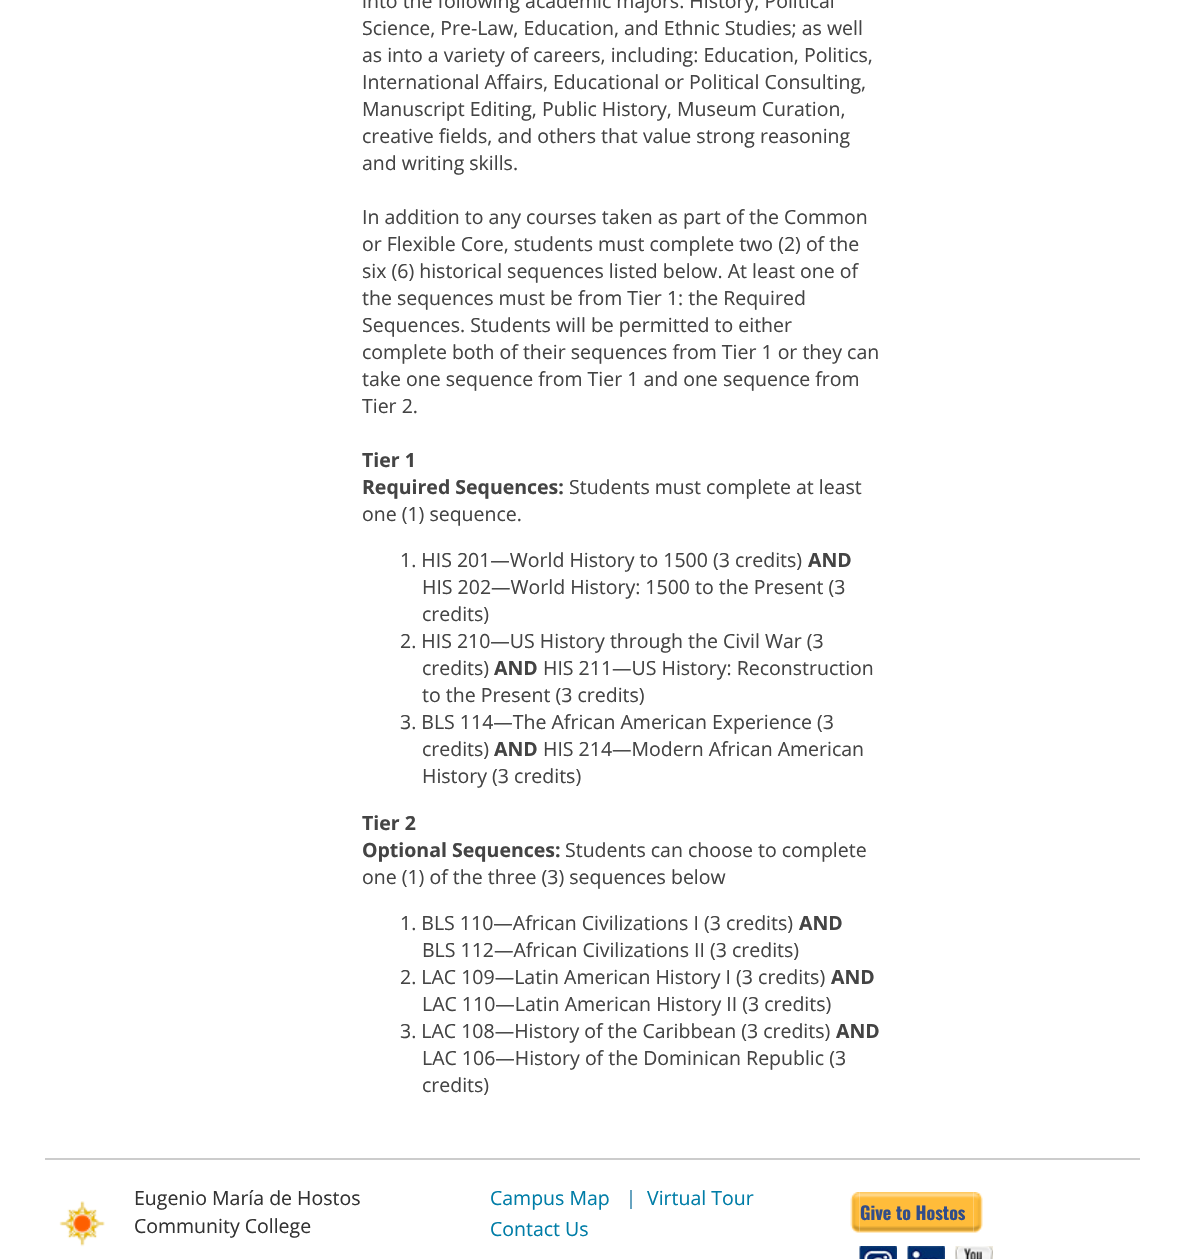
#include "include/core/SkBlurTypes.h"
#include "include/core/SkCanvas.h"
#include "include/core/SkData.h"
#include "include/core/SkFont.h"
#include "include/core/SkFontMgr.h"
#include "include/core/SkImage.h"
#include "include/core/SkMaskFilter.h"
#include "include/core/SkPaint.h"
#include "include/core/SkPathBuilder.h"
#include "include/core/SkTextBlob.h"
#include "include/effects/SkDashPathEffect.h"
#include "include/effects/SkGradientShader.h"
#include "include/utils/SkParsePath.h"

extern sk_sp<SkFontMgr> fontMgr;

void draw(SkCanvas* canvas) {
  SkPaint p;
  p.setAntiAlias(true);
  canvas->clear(SK_ColorWHITE);
  p.setColor(SkColorSetRGB(204, 204, 204));
  canvas->drawRect(SkRect::MakeLTRB(45, 1158, 1140, 1160), p);
  canvas->drawImageRect(SkImages::DeferredFromEncodedData(SkData::MakeFromFileName("images/1.png")), SkRect::MakeLTRB(59, 1201, 105, 1247), SkSamplingOptions());
  p.setColor(SkColorSetRGB(103, 163, 191));
  canvas->drawRect(SkRect::MakeLTRB(630, 1190, 632, 1209), p);
  canvas->drawImageRect(SkImages::DeferredFromEncodedData(SkData::MakeFromFileName("images/2.png")), SkRect::MakeLTRB(859, 1192, 974, 1233), SkSamplingOptions());
  canvas->drawImageRect(SkImages::DeferredFromEncodedData(SkData::MakeFromFileName("images/3.png")), SkRect::MakeLTRB(850, 1192, 860, 1233), SkSamplingOptions());
  canvas->drawImageRect(SkImages::DeferredFromEncodedData(SkData::MakeFromFileName("images/4.png")), SkRect::MakeLTRB(973, 1192, 983, 1233), SkSamplingOptions());
  canvas->drawImageRect(SkImages::DeferredFromEncodedData(SkData::MakeFromFileName("images/5.png")), SkRect::MakeLTRB(859, 1246, 897, 1259), SkSamplingOptions());
  canvas->drawImageRect(SkImages::DeferredFromEncodedData(SkData::MakeFromFileName("images/6.png")), SkRect::MakeLTRB(907, 1246, 945, 1259), SkSamplingOptions());
  canvas->drawImageRect(SkImages::DeferredFromEncodedData(SkData::MakeFromFileName("images/7.png")), SkRect::MakeLTRB(955, 1246, 993, 1259), SkSamplingOptions());
  SkFont font1(fontMgr->matchFamilyStyle("Open Sans", SkFontStyle::Normal()), 19.5f);
  font1.setSubpixel(true);
  p.setColor(SkColorSetRGB(68, 68, 68));
  canvas->drawString("into the following academic majors: History, Political", 362, 8, font1, p);
  canvas->drawString("Science, Pre-Law, Education, and Ethnic Studies; as well", 362, 35, font1, p);
  canvas->drawString("as into a variety of careers, including: Education, Politics,", 362, 62, font1, p);
  canvas->drawString("International Affairs, Educational or Political Consulting,", 362, 89, font1, p);
  canvas->drawString("Manuscript Editing, Public History, Museum Curation,", 362, 116, font1, p);
  canvas->drawString("creative fields, and others that value strong reasoning", 362, 143, font1, p);
  canvas->drawString("and writing skills.", 362, 170, font1, p);
  canvas->drawString("In addition to any courses taken as part of the Common", 362, 224, font1, p);
  canvas->drawString("or Flexible Core, students must complete two (2) of the", 362, 251, font1, p);
  canvas->drawString("six (6) historical sequences listed below. At least one of", 362, 278, font1, p);
  canvas->drawString("the sequences must be from Tier 1: the Required", 362, 305, font1, p);
  canvas->drawString("Sequences. Students will be permitted to either", 362, 332, font1, p);
  canvas->drawString("complete both of their sequences from Tier 1 or they can", 362, 359, font1, p);
  canvas->drawString("take one sequence from Tier 1 and one sequence from", 362, 386, font1, p);
  canvas->drawString("Tier 2.", 362, 413, font1, p);
  SkFont font2(fontMgr->matchFamilyStyle("Open Sans", SkFontStyle::Bold()), 19.5f);
  font2.setSubpixel(true);
  canvas->drawString("Tier 1", 362, 467, font2, p);
  canvas->drawString("Required Sequences:", 362, 494, font2, p);
  canvas->drawString("Students must complete at least", 569, 494, font1, p);
  canvas->drawString("one (1) sequence.", 362, 521, font1, p);
  canvas->drawString("1. HIS 201—World History to 1500 (3 credits)", 400, 567, font1, p);
  canvas->drawString("AND", 808, 567, font2, p);
  canvas->drawString("HIS 202—World History: 1500 to the Present (3", 422, 594, font1, p);
  canvas->drawString("credits)", 422, 621, font1, p);
  canvas->drawString("2. HIS 210—US History through the Civil War (3", 400, 648, font1, p);
  canvas->drawString("credits)", 422, 675, font1, p);
  canvas->drawString("AND", 494, 675, font2, p);
  canvas->drawString("HIS 211—US History: Reconstruction", 543, 675, font1, p);
  canvas->drawString("to the Present (3 credits)", 422, 702, font1, p);
  canvas->drawString("3. BLS 114—The African American Experience (3", 400, 729, font1, p);
  canvas->drawString("credits)", 422, 756, font1, p);
  canvas->drawString("AND", 494, 756, font2, p);
  canvas->drawString("HIS 214—Modern African American", 543, 756, font1, p);
  canvas->drawString("History (3 credits)", 422, 783, font1, p);
  canvas->drawString("Tier 2", 362, 830, font2, p);
  canvas->drawString("Optional Sequences:", 362, 857, font2, p);
  canvas->drawString("Students can choose to complete", 565, 857, font1, p);
  canvas->drawString("one (1) of the three (3) sequences below", 362, 884, font1, p);
  canvas->drawString("1. BLS 110—African Civilizations I (3 credits)", 400, 930, font1, p);
  canvas->drawString("AND", 799, 930, font2, p);
  canvas->drawString("BLS 112—African Civilizations II (3 credits)", 422, 957, font1, p);
  canvas->drawString("2. LAC 109—Latin American History I (3 credits)", 400, 984, font1, p);
  canvas->drawString("AND", 831, 984, font2, p);
  canvas->drawString("LAC 110—Latin American History II (3 credits)", 422, 1011, font1, p);
  canvas->drawString("3. LAC 108—History of the Caribbean (3 credits)", 400, 1038, font1, p);
  canvas->drawString("AND", 836, 1038, font2, p);
  canvas->drawString("LAC 106—History of the Dominican Republic (3", 422, 1065, font1, p);
  canvas->drawString("credits)", 422, 1092, font1, p);
  p.setColor(SkColorSetRGB(51, 51, 51));
  canvas->drawString("Eugenio María de Hostos", 134, 1205, font1, p);
  canvas->drawString("Community College", 134, 1233, font1, p);
  p.setColor(SkColorSetRGB(0, 125, 167));
  canvas->drawString("Campus Map", 490, 1205, font1, p);
  canvas->drawString("Virtual Tour", 647, 1205, font1, p);
  canvas->drawString("Contact Us", 490, 1236, font1, p);
  SkFont font3(fontMgr->matchFamilyStyle("Oswald", SkFontStyle::Bold()), 18);
  font3.setSubpixel(true);
  p.setColor(SkColorSetRGB(49, 77, 137));
  canvas->drawString("Give to Hostos", 860, 1220, font3, p);
}
